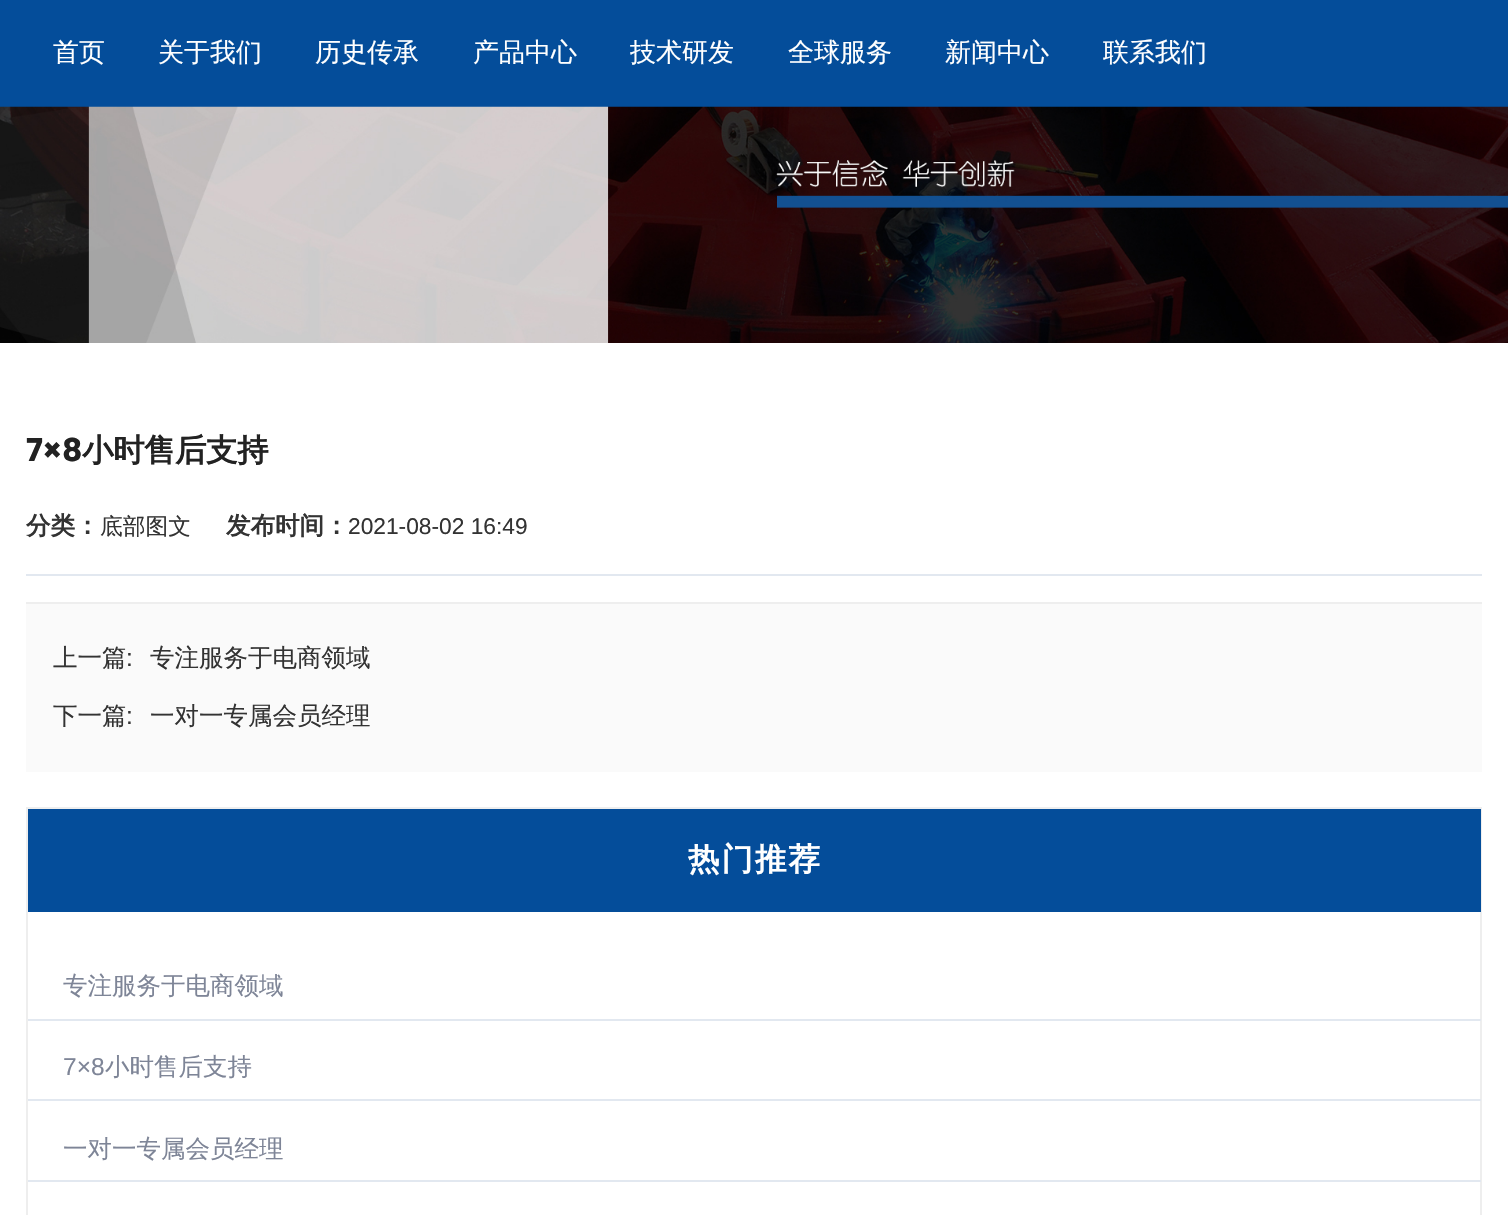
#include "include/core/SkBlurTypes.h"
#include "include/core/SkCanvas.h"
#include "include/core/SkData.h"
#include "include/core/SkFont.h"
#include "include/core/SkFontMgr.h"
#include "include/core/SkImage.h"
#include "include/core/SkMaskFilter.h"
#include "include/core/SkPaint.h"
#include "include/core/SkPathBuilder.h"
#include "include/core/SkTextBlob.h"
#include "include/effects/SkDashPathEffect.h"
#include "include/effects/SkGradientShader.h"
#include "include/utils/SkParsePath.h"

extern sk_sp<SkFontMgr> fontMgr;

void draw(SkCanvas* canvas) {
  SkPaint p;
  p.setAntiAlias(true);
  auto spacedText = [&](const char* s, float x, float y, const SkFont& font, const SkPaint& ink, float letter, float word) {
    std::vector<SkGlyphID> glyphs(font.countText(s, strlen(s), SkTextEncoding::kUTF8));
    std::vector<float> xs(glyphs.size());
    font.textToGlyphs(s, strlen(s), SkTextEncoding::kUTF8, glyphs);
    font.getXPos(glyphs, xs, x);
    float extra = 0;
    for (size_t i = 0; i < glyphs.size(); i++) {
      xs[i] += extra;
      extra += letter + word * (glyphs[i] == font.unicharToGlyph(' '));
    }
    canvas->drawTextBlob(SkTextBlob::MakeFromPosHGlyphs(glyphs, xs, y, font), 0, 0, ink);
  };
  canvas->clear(SK_ColorWHITE);
  p.setColor(SkColorSetRGB(4, 77, 154));
  canvas->drawRect(SkRect::MakeLTRB(0, 0, 1508, 107), p);
  canvas->drawImageRect(SkImages::DeferredFromEncodedData(SkData::MakeFromFileName("images/1.png")), SkRect::MakeLTRB(0, 106, 1508, 343), SkSamplingOptions());
  p.setColor(SkColorSetRGB(238, 238, 238));
  canvas->drawRect(SkRect::MakeLTRB(26, 602, 1482, 604), p);
  p.setColor(SkColorSetRGB(226, 232, 240));
  canvas->drawRect(SkRect::MakeLTRB(26, 574, 1482, 576), p);
  p.setColor(SkColorSetRGB(250, 250, 250));
  canvas->drawRect(SkRect::MakeLTRB(26, 604, 1482, 772), p);
  p.setStyle(SkPaint::kStroke_Style);
  p.setStrokeWidth(2);
  p.setColor(SkColorSetRGB(238, 238, 238));
  canvas->drawRect(SkRect::MakeLTRB(27, 808, 1481, 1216), p);
  p.setStyle(SkPaint::kFill_Style);
  p.setColor(SkColorSetRGB(4, 77, 154));
  canvas->drawRect(SkRect::MakeLTRB(28, 809, 1481, 912), p);
  p.setColor(SkColorSetRGB(226, 232, 240));
  canvas->drawRect(SkRect::MakeLTRB(28, 1019, 1481, 1021), p);
  canvas->drawRect(SkRect::MakeLTRB(28, 1099, 1481, 1101), p);
  canvas->drawRect(SkRect::MakeLTRB(28, 1180, 1481, 1182), p);
  SkFont font1(fontMgr->matchFamilyStyle("WenQuanYi Zen Hei", SkFontStyle(500, SkFontStyle::kNormal_Width, SkFontStyle::kUpright_Slant)), 26);
  font1.setSubpixel(true);
  p.setColor(SK_ColorWHITE);
  canvas->drawString("首页", 53, 61, font1, p);
  canvas->drawString("关于我们", 158, 61, font1, p);
  canvas->drawString("历史传承", 315, 61, font1, p);
  canvas->drawString("产品中心", 473, 61, font1, p);
  canvas->drawString("技术研发", 630, 61, font1, p);
  canvas->drawString("全球服务", 788, 61, font1, p);
  canvas->drawString("新闻中心", 945, 61, font1, p);
  canvas->drawString("联系我们", 1103, 61, font1, p);
  SkFont font2(fontMgr->matchFamilyStyle("Poppins", SkFontStyle::Bold()), 31.5f);
  font2.setSubpixel(true);
  p.setColor(SkColorSetRGB(34, 34, 34));
  spacedText("7×8", 26, 461, font2, p, -0.5f, 0);
  SkFont font3(fontMgr->matchFamilyStyle("WenQuanYi Zen Hei", SkFontStyle::Bold()), 31.5f);
  font3.setSubpixel(true);
  spacedText("小时售后支持", 82, 461, font3, p, -0.5f, 0);
  SkFont font4(fontMgr->matchFamilyStyle("WenQuanYi Zen Hei", SkFontStyle::Bold()), 24.5f);
  font4.setSubpixel(true);
  p.setColor(SkColorSetRGB(51, 51, 51));
  canvas->drawString("分类：", 26, 534, font4, p);
  SkFont font5(fontMgr->matchFamilyStyle("WenQuanYi Zen Hei", SkFontStyle(500, SkFontStyle::kNormal_Width, SkFontStyle::kUpright_Slant)), 22.75f);
  font5.setSubpixel(true);
  canvas->drawString("底部图文", 100, 534, font5, p);
  canvas->drawString("发布时间：", 226, 534, font4, p);
  SkFont font6(fontMgr->matchFamilyStyle("Liberation Sans", SkFontStyle::Normal()), 22.75f);
  font6.setSubpixel(true);
  canvas->drawString("2021-08-02 16:49", 348, 534, font6, p);
  SkFont font7(fontMgr->matchFamilyStyle("WenQuanYi Zen Hei", SkFontStyle(500, SkFontStyle::kNormal_Width, SkFontStyle::kUpright_Slant)), 24.5f);
  font7.setSubpixel(true);
  canvas->drawString("上一篇", 53, 666, font7, p);
  SkFont font8(fontMgr->matchFamilyStyle("Liberation Sans", SkFontStyle::Normal()), 24.5f);
  font8.setSubpixel(true);
  canvas->drawString(":", 126, 666, font8, p);
  canvas->drawString("专注服务于电商领域", 150, 666, font7, p);
  canvas->drawString("下一篇", 53, 724, font7, p);
  canvas->drawString(":", 126, 724, font8, p);
  canvas->drawString("一对一专属会员经理", 150, 724, font7, p);
  p.setColor(SK_ColorWHITE);
  spacedText("热门推荐", 688, 870, font3, p, 2, 0);
  p.setColor(SkColorSetRGB(126, 133, 151));
  canvas->drawString("专注服务于电商领域", 63, 994, font7, p);
  canvas->drawString("7×8", 63, 1075, font8, p);
  canvas->drawString("小时售后支持", 105, 1075, font7, p);
  canvas->drawString("一对一专属会员经理", 63, 1157, font7, p);
}
